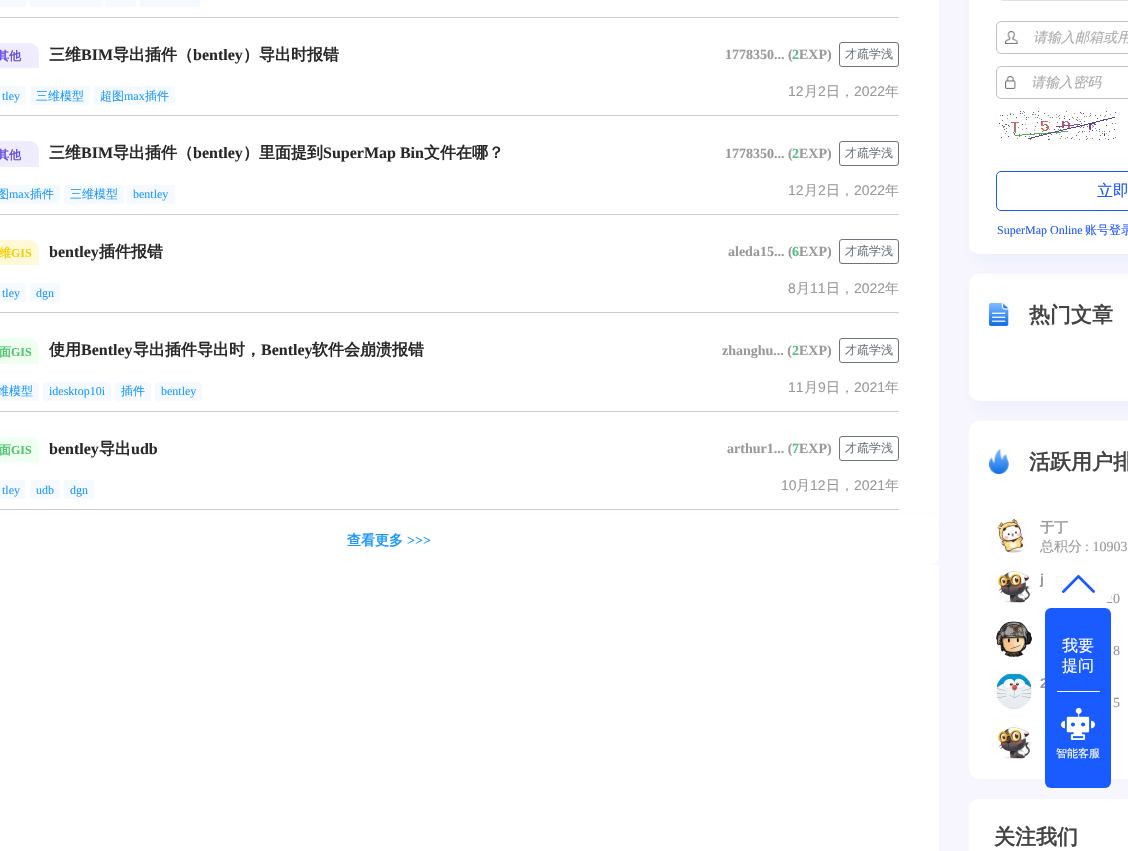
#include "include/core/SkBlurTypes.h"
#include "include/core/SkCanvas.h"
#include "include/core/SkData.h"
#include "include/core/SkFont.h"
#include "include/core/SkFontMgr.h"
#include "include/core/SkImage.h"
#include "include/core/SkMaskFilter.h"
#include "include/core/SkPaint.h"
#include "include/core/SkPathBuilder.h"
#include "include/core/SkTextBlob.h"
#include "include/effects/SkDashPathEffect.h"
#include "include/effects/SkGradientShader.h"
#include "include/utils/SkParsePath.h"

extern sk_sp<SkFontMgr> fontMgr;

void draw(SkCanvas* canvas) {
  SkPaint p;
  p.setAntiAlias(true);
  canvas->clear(SkColorSetRGB(247, 246, 254));
  p.setColor(SK_ColorWHITE);
  canvas->drawRect(SkRect::MakeLTRB(0, 0, 939, 851), p);
  p.setColor(SkColorSetRGB(204, 204, 204));
  canvas->drawRect(SkRect::MakeLTRB(0, 17, 899, 18), p);
  p.setColor(SkColorSetRGB(244, 250, 255));
  canvas->drawRoundRect(SkRect::MakeLTRB(-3, -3, 26, 7), 3, 3, p);
  canvas->drawRoundRect(SkRect::MakeLTRB(30, -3, 102, 7), 3, 3, p);
  canvas->drawRoundRect(SkRect::MakeLTRB(106, -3, 136, 7), 3, 3, p);
  canvas->drawRoundRect(SkRect::MakeLTRB(140, -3, 200, 7), 3, 3, p);
  p.setColor(SkColorSetRGB(204, 204, 204));
  canvas->drawRect(SkRect::MakeLTRB(0, 115, 899, 116), p);
  p.setColor(SkColorSetRGB(239, 236, 255));
  canvas->drawPath(SkPathBuilder().moveTo(-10, 43).lineTo(29, 43).cubicTo(34.5f, 43, 39, 47.5f, 39, 53).lineTo(39, 68).lineTo(0, 68).cubicTo(-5.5f, 68, -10, 63.5f, -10, 58).close().detach(), p);
  p.setStyle(SkPaint::kStroke_Style);
  p.setStrokeWidth(1);
  p.setColor(SkColorSetRGB(108, 117, 125));
  canvas->drawRoundRect(SkRect::MakeLTRB(839.5f, 42.5f, 898.5f, 66.5f), 2.5f, 2.5f, p);
  p.setStyle(SkPaint::kFill_Style);
  p.setColor(SkColorSetRGB(244, 250, 255));
  canvas->drawRoundRect(SkRect::MakeLTRB(-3, 86, 26, 105), 3, 3, p);
  canvas->drawRoundRect(SkRect::MakeLTRB(30, 86, 90, 105), 3, 3, p);
  canvas->drawRoundRect(SkRect::MakeLTRB(94, 86, 175, 105), 3, 3, p);
  p.setColor(SkColorSetRGB(204, 204, 204));
  canvas->drawRect(SkRect::MakeLTRB(0, 214, 899, 215), p);
  p.setColor(SkColorSetRGB(239, 236, 255));
  canvas->drawPath(SkPathBuilder().moveTo(-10, 141).lineTo(29, 141).cubicTo(34.5f, 141, 39, 145.5f, 39, 151).lineTo(39, 167).lineTo(0, 167).cubicTo(-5.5f, 167, -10, 162.5f, -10, 157).close().detach(), p);
  p.setStyle(SkPaint::kStroke_Style);
  p.setColor(SkColorSetRGB(108, 117, 125));
  canvas->drawRoundRect(SkRect::MakeLTRB(839.5f, 141.5f, 898.5f, 165.5f), 2.5f, 2.5f, p);
  p.setStyle(SkPaint::kFill_Style);
  p.setColor(SkColorSetRGB(244, 250, 255));
  canvas->drawRoundRect(SkRect::MakeLTRB(-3, 185, 60, 204), 3, 3, p);
  canvas->drawRoundRect(SkRect::MakeLTRB(64, 185, 124, 204), 3, 3, p);
  canvas->drawRoundRect(SkRect::MakeLTRB(127, 185, 175, 204), 3, 3, p);
  p.setColor(SkColorSetRGB(204, 204, 204));
  canvas->drawRect(SkRect::MakeLTRB(0, 312, 899, 313), p);
  p.setColor(SkColorSetRGB(255, 249, 216));
  canvas->drawPath(SkPathBuilder().moveTo(-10, 240).lineTo(29, 240).cubicTo(34.5f, 240, 39, 244.5f, 39, 250).lineTo(39, 265).lineTo(0, 265).cubicTo(-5.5f, 265, -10, 260.5f, -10, 255).close().detach(), p);
  p.setStyle(SkPaint::kStroke_Style);
  p.setColor(SkColorSetRGB(108, 117, 125));
  canvas->drawRoundRect(SkRect::MakeLTRB(839.5f, 239.5f, 898.5f, 263.5f), 2.5f, 2.5f, p);
  p.setStyle(SkPaint::kFill_Style);
  p.setColor(SkColorSetRGB(244, 250, 255));
  canvas->drawRoundRect(SkRect::MakeLTRB(-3, 283, 26, 302), 3, 3, p);
  canvas->drawRoundRect(SkRect::MakeLTRB(30, 283, 60, 302), 3, 3, p);
  p.setColor(SkColorSetRGB(204, 204, 204));
  canvas->drawRect(SkRect::MakeLTRB(0, 411, 899, 412), p);
  p.setColor(SkColorSetRGB(239, 255, 240));
  canvas->drawPath(SkPathBuilder().moveTo(-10, 338).lineTo(29, 338).cubicTo(34.5f, 338, 39, 342.5f, 39, 348).lineTo(39, 364).lineTo(0, 364).cubicTo(-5.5f, 364, -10, 359.5f, -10, 354).close().detach(), p);
  p.setStyle(SkPaint::kStroke_Style);
  p.setColor(SkColorSetRGB(108, 117, 125));
  canvas->drawRoundRect(SkRect::MakeLTRB(839.5f, 338.5f, 898.5f, 362.5f), 2.5f, 2.5f, p);
  p.setStyle(SkPaint::kFill_Style);
  p.setColor(SkColorSetRGB(244, 250, 255));
  canvas->drawRoundRect(SkRect::MakeLTRB(-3, 382, 39, 401), 3, 3, p);
  canvas->drawRoundRect(SkRect::MakeLTRB(43, 382, 111, 401), 3, 3, p);
  canvas->drawRoundRect(SkRect::MakeLTRB(115, 382, 151, 401), 3, 3, p);
  canvas->drawRoundRect(SkRect::MakeLTRB(155, 382, 202, 401), 3, 3, p);
  canvas->save();
  canvas->clipRect(SkRect::MakeLTRB(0, 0, 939, 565));
  p.setColor(SkColorSetARGB(13, 30, 89, 255));
  p.setMaskFilter(SkMaskFilter::MakeBlur(kNormal_SkBlurStyle, 8));
  canvas->drawRoundRect(SkRect::MakeLTRB(-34, 522, 944, 572), 10, 10, p);
  p.setMaskFilter(nullptr);
  canvas->restore();
  p.setColor(SkColorSetRGB(204, 204, 204));
  canvas->drawRect(SkRect::MakeLTRB(0, 509, 899, 510), p);
  p.setColor(SkColorSetRGB(239, 255, 240));
  canvas->drawPath(SkPathBuilder().moveTo(-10, 437).lineTo(29, 437).cubicTo(34.5f, 437, 39, 441.5f, 39, 447).lineTo(39, 462).lineTo(0, 462).cubicTo(-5.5f, 462, -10, 457.5f, -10, 452).close().detach(), p);
  p.setStyle(SkPaint::kStroke_Style);
  p.setColor(SkColorSetRGB(108, 117, 125));
  canvas->drawRoundRect(SkRect::MakeLTRB(839.5f, 436.5f, 898.5f, 460.5f), 2.5f, 2.5f, p);
  p.setStyle(SkPaint::kFill_Style);
  p.setColor(SkColorSetRGB(244, 250, 255));
  canvas->drawRoundRect(SkRect::MakeLTRB(-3, 480, 26, 499), 3, 3, p);
  canvas->drawRoundRect(SkRect::MakeLTRB(30, 480, 60, 499), 3, 3, p);
  canvas->drawRoundRect(SkRect::MakeLTRB(64, 480, 94, 499), 3, 3, p);
  p.setColor(SK_ColorWHITE);
  canvas->drawPath(SkPathBuilder().moveTo(-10, 515).lineTo(929, 515).cubicTo(934.5f, 515, 939, 519.5f, 939, 525).lineTo(939, 555).cubicTo(939, 560.5f, 934.5f, 565, 929, 565).lineTo(0, 565).cubicTo(-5.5f, 565, -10, 560.5f, -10, 555).close().detach(), p);
  p.setColor(SkColorSetARGB(13, 30, 89, 255));
  p.setMaskFilter(SkMaskFilter::MakeBlur(kNormal_SkBlurStyle, 8));
  canvas->drawRoundRect(SkRect::MakeLTRB(974, -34, 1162, 261), 10, 10, p);
  p.setMaskFilter(nullptr);
  p.setColor(SK_ColorWHITE);
  canvas->drawRoundRect(SkRect::MakeLTRB(969, -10, 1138, 254), 10, 10, p);
  p.setColor(SkColorSetRGB(225, 225, 225));
  canvas->drawRect(SkRect::MakeLTRB(1002, 0, 1128, 1), p);
  p.setStyle(SkPaint::kStroke_Style);
  p.setColor(SkColorSetRGB(194, 194, 194));
  canvas->drawRoundRect(SkRect::MakeLTRB(996.5f, 21.5f, 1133.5f, 53.5f), 4.5f, 4.5f, p);
  canvas->drawImageRect(SkImages::DeferredFromEncodedData(SkData::MakeFromFileName("images/1.png")), SkRect::MakeLTRB(1005, 31, 1018, 44), SkSamplingOptions());
  canvas->drawRoundRect(SkRect::MakeLTRB(996.5f, 66.5f, 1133.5f, 98.5f), 4.5f, 4.5f, p);
  canvas->drawImageRect(SkImages::DeferredFromEncodedData(SkData::MakeFromFileName("images/2.png")), SkRect::MakeLTRB(1005, 76, 1016, 89), SkSamplingOptions());
  canvas->drawImageRect(SkImages::DeferredFromEncodedData(SkData::MakeFromFileName("images/3.png")), SkRect::MakeLTRB(999, 111, 1116, 140), SkSamplingOptions());
  p.setColor(SkColorSetRGB(26, 91, 255));
  canvas->drawRoundRect(SkRect::MakeLTRB(996.5f, 171.5f, 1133.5f, 210.5f), 4.5f, 4.5f, p);
  p.setStyle(SkPaint::kFill_Style);
  p.setColor(SkColorSetARGB(13, 30, 89, 255));
  p.setMaskFilter(SkMaskFilter::MakeBlur(kNormal_SkBlurStyle, 8));
  canvas->drawRoundRect(SkRect::MakeLTRB(974, 281, 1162, 408), 10, 10, p);
  p.setMaskFilter(nullptr);
  p.setColor(SK_ColorWHITE);
  canvas->drawRoundRect(SkRect::MakeLTRB(969, 274, 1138, 401), 10, 10, p);
  canvas->drawImageRect(SkImages::DeferredFromEncodedData(SkData::MakeFromFileName("images/4.png")), SkRect::MakeLTRB(989, 303, 1009, 326), SkSamplingOptions());
  canvas->drawRoundRect(SkRect::MakeLTRB(969, 421, 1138, 779), 10, 10, p);
  canvas->drawImageRect(SkImages::DeferredFromEncodedData(SkData::MakeFromFileName("images/5.png")), SkRect::MakeLTRB(989, 449, 1009, 474), SkSamplingOptions());
  canvas->drawImageRect(SkImages::DeferredFromEncodedData(SkData::MakeFromFileName("images/6.png")), SkRect::MakeLTRB(996, 517, 1028, 553), SkSamplingOptions());
  canvas->drawImageRect(SkImages::DeferredFromEncodedData(SkData::MakeFromFileName("images/7.png")), SkRect::MakeLTRB(996, 569, 1032, 605), SkSamplingOptions());
  canvas->drawImageRect(SkImages::DeferredFromEncodedData(SkData::MakeFromFileName("images/8.png")), SkRect::MakeLTRB(996, 621, 1032, 657), SkSamplingOptions());
  canvas->drawImageRect(SkImages::DeferredFromEncodedData(SkData::MakeFromFileName("images/9.png")), SkRect::MakeLTRB(996, 673, 1032, 709), SkSamplingOptions());
  canvas->drawImageRect(SkImages::DeferredFromEncodedData(SkData::MakeFromFileName("images/10.png")), SkRect::MakeLTRB(996, 725, 1032, 761), SkSamplingOptions());
  canvas->drawRoundRect(SkRect::MakeLTRB(969, 799, 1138, 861), 10, 10, p);
  SkFont font1(fontMgr->matchFamilyStyle("WenQuanYi Zen Hei", SkFontStyle::Bold()), 12);
  font1.setSubpixel(true);
  p.setColor(SkColorSetRGB(102, 75, 228));
  canvas->drawString("其他", -3, 60, font1, p);
  SkFont font2(fontMgr->matchFamilyStyle("WenQuanYi Zen Hei", SkFontStyle::Bold()), 16);
  font2.setSubpixel(true);
  p.setColor(SkColorSetRGB(40, 40, 40));
  canvas->drawString("三维", 49, 60, font2, p);
  SkFont font3(fontMgr->matchFamilyStyle("Liberation Serif", SkFontStyle::Bold()), 16);
  font3.setSubpixel(true);
  canvas->drawString("BIM", 81, 60, font3, p);
  canvas->drawString("导出插件（", 113, 60, font2, p);
  canvas->drawString("bentley", 193, 60, font3, p);
  canvas->drawString("）导出时报错", 243, 60, font2, p);
  SkFont font4(fontMgr->matchFamilyStyle("Liberation Serif", SkFontStyle::Bold()), 14);
  font4.setSubpixel(true);
  p.setColor(SkColorSetRGB(153, 153, 153));
  canvas->drawString("1778350... (", 725, 59, font4, p);
  p.setColor(SkColorSetRGB(81, 193, 130));
  canvas->drawString("2", 792, 59, font4, p);
  p.setColor(SkColorSetRGB(153, 153, 153));
  canvas->drawString("EXP)", 799, 59, font4, p);
  SkFont font5(fontMgr->matchFamilyStyle("WenQuanYi Zen Hei", SkFontStyle(500, SkFontStyle::kNormal_Width, SkFontStyle::kUpright_Slant)), 12);
  font5.setSubpixel(true);
  p.setColor(SkColorSetRGB(108, 117, 125));
  canvas->drawString("才疏学浅", 845, 58, font5, p);
  SkFont font6(fontMgr->matchFamilyStyle("Liberation Serif", SkFontStyle::Normal()), 12);
  font6.setSubpixel(true);
  p.setColor(SkColorSetRGB(30, 153, 255));
  canvas->drawString("tley", 2, 100, font6, p);
  canvas->drawString("三维模型", 36, 100, font5, p);
  canvas->drawString("超图", 100, 100, font5, p);
  canvas->drawString("max", 124, 100, font6, p);
  canvas->drawString("插件", 145, 100, font5, p);
  SkFont font7(fontMgr->matchFamilyStyle("Liberation Sans", SkFontStyle::Normal()), 14);
  font7.setSubpixel(true);
  p.setColor(SkColorSetRGB(153, 153, 153));
  canvas->drawString("12", 788, 96, font7, p);
  SkFont font8(fontMgr->matchFamilyStyle("WenQuanYi Zen Hei", SkFontStyle(500, SkFontStyle::kNormal_Width, SkFontStyle::kUpright_Slant)), 14);
  font8.setSubpixel(true);
  canvas->drawString("月", 804, 96, font8, p);
  canvas->drawString("2", 818, 96, font7, p);
  canvas->drawString("日，", 826, 96, font8, p);
  canvas->drawString("2022", 854, 96, font7, p);
  canvas->drawString("年", 885, 96, font8, p);
  p.setColor(SkColorSetRGB(102, 75, 228));
  canvas->drawString("其他", -3, 159, font1, p);
  p.setColor(SkColorSetRGB(40, 40, 40));
  canvas->drawString("三维", 49, 158, font2, p);
  canvas->drawString("BIM", 81, 158, font3, p);
  canvas->drawString("导出插件（", 113, 158, font2, p);
  canvas->drawString("bentley", 193, 158, font3, p);
  canvas->drawString("）里面提到", 243, 158, font2, p);
  canvas->drawString("SuperMap Bin", 323, 158, font3, p);
  canvas->drawString("文件在哪？", 424, 158, font2, p);
  p.setColor(SkColorSetRGB(153, 153, 153));
  canvas->drawString("1778350... (", 725, 158, font4, p);
  p.setColor(SkColorSetRGB(81, 193, 130));
  canvas->drawString("2", 792, 158, font4, p);
  p.setColor(SkColorSetRGB(153, 153, 153));
  canvas->drawString("EXP)", 799, 158, font4, p);
  p.setColor(SkColorSetRGB(108, 117, 125));
  canvas->drawString("才疏学浅", 845, 157, font5, p);
  p.setColor(SkColorSetRGB(30, 153, 255));
  canvas->drawString("图", -3, 198, font5, p);
  canvas->drawString("max", 9, 198, font6, p);
  canvas->drawString("插件", 30, 198, font5, p);
  canvas->drawString("三维模型", 70, 198, font5, p);
  canvas->drawString("bentley", 133, 198, font6, p);
  p.setColor(SkColorSetRGB(153, 153, 153));
  canvas->drawString("12", 788, 195, font7, p);
  canvas->drawString("月", 804, 195, font8, p);
  canvas->drawString("2", 818, 195, font7, p);
  canvas->drawString("日，", 826, 195, font8, p);
  canvas->drawString("2022", 854, 195, font7, p);
  canvas->drawString("年", 885, 195, font8, p);
  p.setColor(SkColorSetRGB(250, 207, 7));
  canvas->drawString("维", -1, 257, font1, p);
  SkFont font9(fontMgr->matchFamilyStyle("Liberation Serif", SkFontStyle::Bold()), 12);
  font9.setSubpixel(true);
  canvas->drawString("GIS", 11, 257, font9, p);
  p.setColor(SkColorSetRGB(40, 40, 40));
  canvas->drawString("bentley", 49, 257, font3, p);
  canvas->drawString("插件报错", 99, 257, font2, p);
  p.setColor(SkColorSetRGB(153, 153, 153));
  canvas->drawString("aleda15... (", 728, 256, font4, p);
  p.setColor(SkColorSetRGB(81, 193, 130));
  canvas->drawString("6", 792, 256, font4, p);
  p.setColor(SkColorSetRGB(153, 153, 153));
  canvas->drawString("EXP)", 799, 256, font4, p);
  p.setColor(SkColorSetRGB(108, 117, 125));
  canvas->drawString("才疏学浅", 845, 255, font5, p);
  p.setColor(SkColorSetRGB(30, 153, 255));
  canvas->drawString("tley", 2, 297, font6, p);
  canvas->drawString("dgn", 36, 297, font6, p);
  p.setColor(SkColorSetRGB(153, 153, 153));
  canvas->drawString("8", 788, 293, font7, p);
  canvas->drawString("月", 796, 293, font8, p);
  canvas->drawString("11", 810, 293, font7, p);
  canvas->drawString("日，", 826, 293, font8, p);
  canvas->drawString("2022", 854, 293, font7, p);
  canvas->drawString("年", 885, 293, font8, p);
  p.setColor(SkColorSetRGB(83, 195, 113));
  canvas->drawString("面", -1, 356, font1, p);
  canvas->drawString("GIS", 11, 356, font9, p);
  p.setColor(SkColorSetRGB(40, 40, 40));
  canvas->drawString("使用", 49, 355, font2, p);
  canvas->drawString("Bentley", 81, 355, font3, p);
  canvas->drawString("导出插件导出时，", 133, 355, font2, p);
  canvas->drawString("Bentley", 261, 355, font3, p);
  canvas->drawString("软件会崩溃报错", 312, 355, font2, p);
  p.setColor(SkColorSetRGB(153, 153, 153));
  canvas->drawString("zhanghu... (", 722, 355, font4, p);
  p.setColor(SkColorSetRGB(81, 193, 130));
  canvas->drawString("2", 792, 355, font4, p);
  p.setColor(SkColorSetRGB(153, 153, 153));
  canvas->drawString("EXP)", 799, 355, font4, p);
  p.setColor(SkColorSetRGB(108, 117, 125));
  canvas->drawString("才疏学浅", 845, 354, font5, p);
  p.setColor(SkColorSetRGB(30, 153, 255));
  canvas->drawString("维模型", -3, 395, font5, p);
  canvas->drawString("idesktop10i", 49, 395, font6, p);
  canvas->drawString("插件", 121, 395, font5, p);
  canvas->drawString("bentley", 161, 395, font6, p);
  p.setColor(SkColorSetRGB(153, 153, 153));
  canvas->drawString("11", 788, 392, font7, p);
  canvas->drawString("月", 804, 392, font8, p);
  canvas->drawString("9", 818, 392, font7, p);
  canvas->drawString("日，", 826, 392, font8, p);
  canvas->drawString("2021", 854, 392, font7, p);
  canvas->drawString("年", 885, 392, font8, p);
  p.setColor(SkColorSetRGB(83, 195, 113));
  canvas->drawString("面", -1, 454, font1, p);
  canvas->drawString("GIS", 11, 454, font9, p);
  p.setColor(SkColorSetRGB(40, 40, 40));
  canvas->drawString("bentley", 49, 454, font3, p);
  canvas->drawString("导出", 99, 454, font2, p);
  canvas->drawString("udb", 131, 454, font3, p);
  p.setColor(SkColorSetRGB(153, 153, 153));
  canvas->drawString("arthur1... (", 727, 453, font4, p);
  p.setColor(SkColorSetRGB(81, 193, 130));
  canvas->drawString("7", 792, 453, font4, p);
  p.setColor(SkColorSetRGB(153, 153, 153));
  canvas->drawString("EXP)", 799, 453, font4, p);
  p.setColor(SkColorSetRGB(108, 117, 125));
  canvas->drawString("才疏学浅", 845, 452, font5, p);
  p.setColor(SkColorSetRGB(30, 153, 255));
  canvas->drawString("tley", 2, 494, font6, p);
  canvas->drawString("udb", 36, 494, font6, p);
  canvas->drawString("dgn", 70, 494, font6, p);
  p.setColor(SkColorSetRGB(153, 153, 153));
  canvas->drawString("10", 781, 490, font7, p);
  canvas->drawString("月", 796, 490, font8, p);
  canvas->drawString("12", 810, 490, font7, p);
  canvas->drawString("日，", 826, 490, font8, p);
  canvas->drawString("2021", 854, 490, font7, p);
  canvas->drawString("年", 885, 490, font8, p);
  SkFont font10(fontMgr->matchFamilyStyle("WenQuanYi Zen Hei", SkFontStyle::Bold()), 14);
  font10.setSubpixel(true);
  p.setColor(SkColorSetRGB(30, 153, 255));
  canvas->drawString("查看更多", 347, 545, font10, p);
  canvas->drawString(">>>", 407, 545, font4, p);
  SkFont font11(fontMgr->matchFamilyStyle("WenQuanYi Zen Hei", SkFontStyle(500, SkFontStyle::kNormal_Width, SkFontStyle::kItalic_Slant)), 14);
  font11.setSubpixel(true);
  p.setColor(SkColorSetRGB(170, 170, 170));
  canvas->drawString("请输入邮箱或用", 1033, 42, font11, p);
  canvas->drawString("请输入密码", 1031, 87, font11, p);
  SkFont font12(fontMgr->matchFamilyStyle("WenQuanYi Zen Hei", SkFontStyle(500, SkFontStyle::kNormal_Width, SkFontStyle::kUpright_Slant)), 16);
  font12.setSubpixel(true);
  p.setColor(SkColorSetRGB(30, 89, 255));
  canvas->drawString("立即", 1097, 196, font12, p);
  canvas->drawString("SuperMap Online", 997, 234, font6, p);
  canvas->drawString("账号登录", 1085, 234, font5, p);
  SkFont font13(fontMgr->matchFamilyStyle("WenQuanYi Zen Hei", SkFontStyle::Bold()), 21);
  font13.setSubpixel(true);
  p.setColor(SkColorSetRGB(68, 68, 68));
  canvas->drawString("热门文章", 1029, 322, font13, p);
  canvas->drawString("活跃用户排", 1029, 469, font13, p);
  p.setColor(SkColorSetRGB(153, 153, 153));
  canvas->drawString("于丁", 1040, 532, font10, p);
  canvas->drawString("总积分", 1040, 551, font8, p);
  SkFont font14(fontMgr->matchFamilyStyle("Liberation Serif", SkFontStyle::Normal()), 14);
  font14.setSubpixel(true);
  canvas->drawString(": 10903", 1085, 551, font14, p);
  SkFont font15(fontMgr->matchFamilyStyle("Liberation Sans", SkFontStyle::Bold()), 14);
  font15.setSubpixel(true);
  canvas->drawString("j", 1040, 584, font15, p);
  canvas->drawString("20", 1106, 603, font14, p);
  canvas->drawString("8", 1113, 655, font14, p);
  canvas->drawString("2", 1040, 688, font15, p);
  canvas->drawString("5", 1113, 707, font14, p);
  p.setColor(SkColorSetRGB(68, 68, 68));
  canvas->drawString("关注我们", 994, 844, font13, p);
  p.setColor(SK_ColorWHITE);
  canvas->drawRoundRect(SkRect::MakeLTRB(1045, 566, 1112, 603), 8, 8, p);
  canvas->drawImageRect(SkImages::DeferredFromEncodedData(SkData::MakeFromFileName("images/11.png")), SkRect::MakeLTRB(1062, 575, 1095, 593), SkSamplingOptions());
  p.setColor(SkColorSetRGB(26, 91, 255));
  canvas->drawRoundRect(SkRect::MakeLTRB(1045, 608, 1111, 788), 6, 6, p);
  p.setColor(SK_ColorWHITE);
  canvas->drawString("我要", 1062, 651, font12, p);
  canvas->drawString("提问", 1062, 671, font12, p);
  canvas->drawRoundRect(SkRect::MakeLTRB(1057, 691, 1100, 692), 0.5f, 0.5f, p);
  canvas->drawImageRect(SkImages::DeferredFromEncodedData(SkData::MakeFromFileName("images/12.png")), SkRect::MakeLTRB(1061, 708, 1095, 740), SkSamplingOptions());
  SkFont font16(fontMgr->matchFamilyStyle("WenQuanYi Zen Hei", SkFontStyle(500, SkFontStyle::kNormal_Width, SkFontStyle::kUpright_Slant)), 11);
  font16.setSubpixel(true);
  canvas->drawString("智能客服", 1056, 757, font16, p);
}
